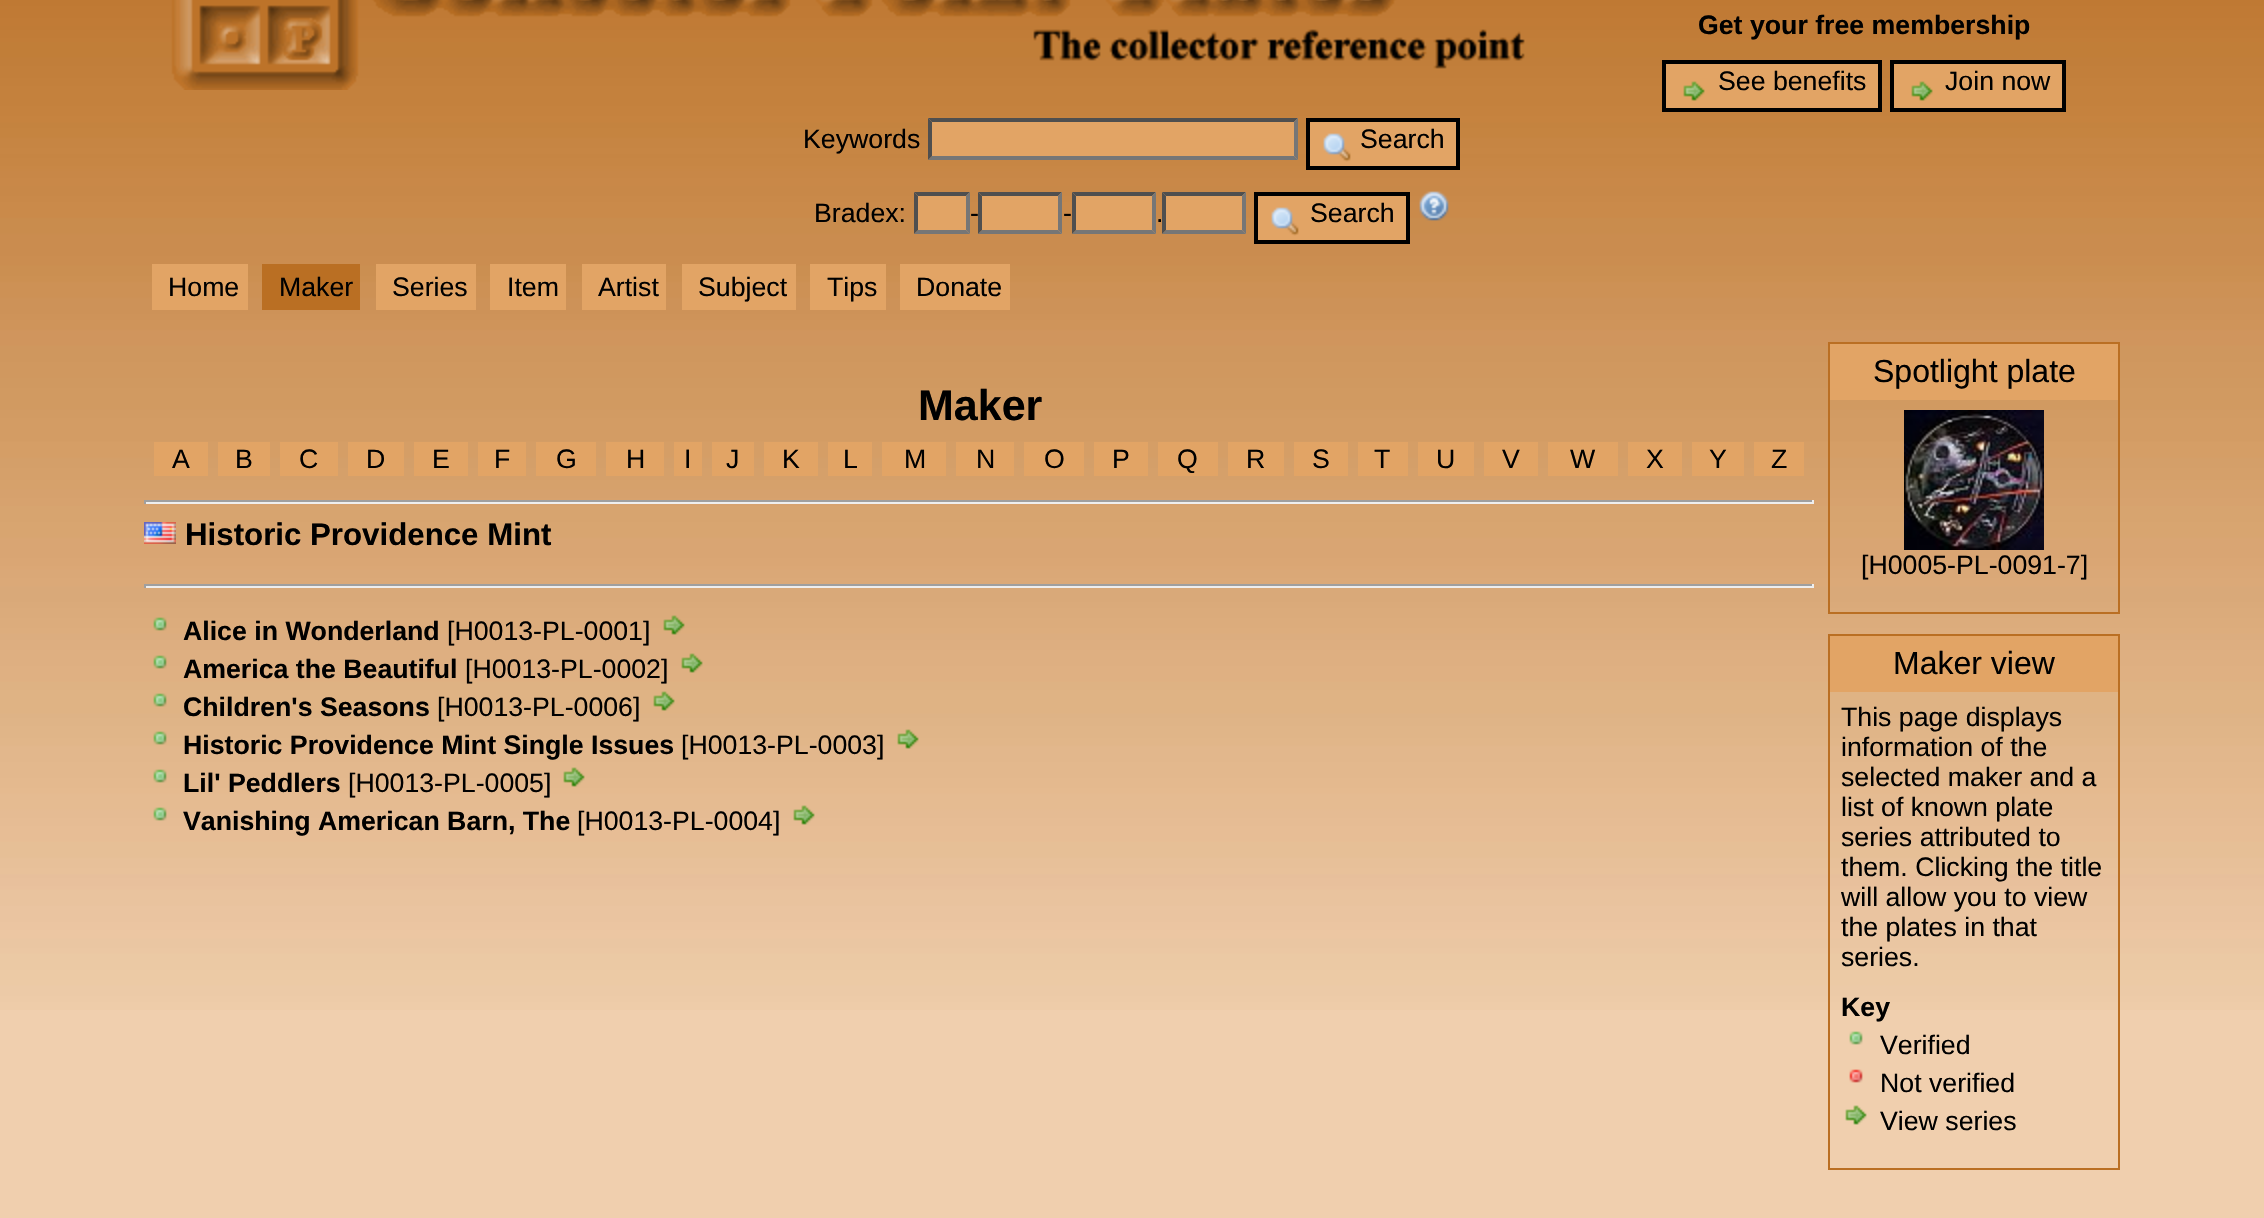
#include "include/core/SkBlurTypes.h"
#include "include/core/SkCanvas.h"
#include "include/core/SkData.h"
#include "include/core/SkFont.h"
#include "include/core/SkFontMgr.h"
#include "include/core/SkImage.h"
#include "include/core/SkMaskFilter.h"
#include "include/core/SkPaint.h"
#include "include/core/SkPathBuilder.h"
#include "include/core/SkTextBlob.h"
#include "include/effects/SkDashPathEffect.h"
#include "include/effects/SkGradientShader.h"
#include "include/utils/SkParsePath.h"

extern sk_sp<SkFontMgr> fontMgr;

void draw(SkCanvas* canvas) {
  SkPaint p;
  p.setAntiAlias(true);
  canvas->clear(SkColorSetRGB(240, 207, 174));
  canvas->drawImageRect(SkImages::DeferredFromEncodedData(SkData::MakeFromFileName("images/1.png")), SkRect::MakeLTRB(0, 0, 2264, 1010), SkSamplingOptions());
  canvas->drawImageRect(SkImages::DeferredFromEncodedData(SkData::MakeFromFileName("images/2.png")), SkRect::MakeLTRB(171, 0, 1525, 90), SkSamplingOptions());
  p.setColor(SkColorSetRGB(226, 164, 101));
  canvas->drawRect(SkRect::MakeLTRB(1664, 62, 1880, 110), p);
  p.setStyle(SkPaint::kStroke_Style);
  p.setStrokeWidth(4);
  p.setColor(SK_ColorBLACK);
  canvas->drawRect(SkRect::MakeLTRB(1664, 62, 1880, 110), p);
  canvas->drawImageRect(SkImages::DeferredFromEncodedData(SkData::MakeFromFileName("images/3.png")), SkRect::MakeLTRB(1683, 81, 1705, 101), SkSamplingOptions());
  p.setStyle(SkPaint::kFill_Style);
  p.setColor(SkColorSetRGB(226, 164, 101));
  canvas->drawRect(SkRect::MakeLTRB(1892, 62, 2064, 110), p);
  p.setStyle(SkPaint::kStroke_Style);
  p.setColor(SK_ColorBLACK);
  canvas->drawRect(SkRect::MakeLTRB(1892, 62, 2064, 110), p);
  canvas->drawImageRect(SkImages::DeferredFromEncodedData(SkData::MakeFromFileName("images/3.png")), SkRect::MakeLTRB(1911, 81, 1933, 101), SkSamplingOptions());
  p.setStyle(SkPaint::kFill_Style);
  p.setColor(SkColorSetRGB(226, 164, 101));
  canvas->drawRect(SkRect::MakeLTRB(928, 118, 1298, 160), p);
  p.setColor(SkColorSetRGB(79, 79, 79));
  canvas->drawPath(SkPathBuilder().moveTo(928, 118).lineTo(1298, 118).lineTo(1294, 122).lineTo(932, 122).close().detach(), p);
  p.setColor(SkColorSetRGB(118, 118, 118));
  canvas->drawPath(SkPathBuilder().moveTo(1298, 118).lineTo(1298, 160).lineTo(1294, 156).lineTo(1294, 122).close().detach(), p);
  canvas->drawPath(SkPathBuilder().moveTo(1298, 160).lineTo(928, 160).lineTo(932, 156).lineTo(1294, 156).close().detach(), p);
  p.setColor(SkColorSetRGB(79, 79, 79));
  canvas->drawPath(SkPathBuilder().moveTo(928, 160).lineTo(928, 118).lineTo(932, 122).lineTo(932, 156).close().detach(), p);
  p.setColor(SkColorSetRGB(226, 164, 101));
  canvas->drawRect(SkRect::MakeLTRB(1308, 120, 1458, 168), p);
  p.setStyle(SkPaint::kStroke_Style);
  p.setColor(SK_ColorBLACK);
  canvas->drawRect(SkRect::MakeLTRB(1308, 120, 1458, 168), p);
  canvas->drawImageRect(SkImages::DeferredFromEncodedData(SkData::MakeFromFileName("images/4.png")), SkRect::MakeLTRB(1323, 133, 1351, 162), SkSamplingOptions());
  p.setStyle(SkPaint::kFill_Style);
  p.setColor(SkColorSetRGB(226, 164, 101));
  canvas->drawRect(SkRect::MakeLTRB(914, 192, 970, 234), p);
  p.setColor(SkColorSetRGB(79, 79, 79));
  canvas->drawPath(SkPathBuilder().moveTo(914, 192).lineTo(970, 192).lineTo(966, 196).lineTo(918, 196).close().detach(), p);
  p.setColor(SkColorSetRGB(118, 118, 118));
  canvas->drawPath(SkPathBuilder().moveTo(970, 192).lineTo(970, 234).lineTo(966, 230).lineTo(966, 196).close().detach(), p);
  canvas->drawPath(SkPathBuilder().moveTo(970, 234).lineTo(914, 234).lineTo(918, 230).lineTo(966, 230).close().detach(), p);
  p.setColor(SkColorSetRGB(79, 79, 79));
  canvas->drawPath(SkPathBuilder().moveTo(914, 234).lineTo(914, 192).lineTo(918, 196).lineTo(918, 230).close().detach(), p);
  p.setColor(SkColorSetRGB(226, 164, 101));
  canvas->drawRect(SkRect::MakeLTRB(978, 192, 1062, 234), p);
  p.setColor(SkColorSetRGB(79, 79, 79));
  canvas->drawPath(SkPathBuilder().moveTo(978, 192).lineTo(1062, 192).lineTo(1058, 196).lineTo(982, 196).close().detach(), p);
  p.setColor(SkColorSetRGB(118, 118, 118));
  canvas->drawPath(SkPathBuilder().moveTo(1062, 192).lineTo(1062, 234).lineTo(1058, 230).lineTo(1058, 196).close().detach(), p);
  canvas->drawPath(SkPathBuilder().moveTo(1062, 234).lineTo(978, 234).lineTo(982, 230).lineTo(1058, 230).close().detach(), p);
  p.setColor(SkColorSetRGB(79, 79, 79));
  canvas->drawPath(SkPathBuilder().moveTo(978, 234).lineTo(978, 192).lineTo(982, 196).lineTo(982, 230).close().detach(), p);
  p.setColor(SkColorSetRGB(226, 164, 101));
  canvas->drawRect(SkRect::MakeLTRB(1072, 192, 1156, 234), p);
  p.setColor(SkColorSetRGB(79, 79, 79));
  canvas->drawPath(SkPathBuilder().moveTo(1072, 192).lineTo(1156, 192).lineTo(1152, 196).lineTo(1076, 196).close().detach(), p);
  p.setColor(SkColorSetRGB(118, 118, 118));
  canvas->drawPath(SkPathBuilder().moveTo(1156, 192).lineTo(1156, 234).lineTo(1152, 230).lineTo(1152, 196).close().detach(), p);
  canvas->drawPath(SkPathBuilder().moveTo(1156, 234).lineTo(1072, 234).lineTo(1076, 230).lineTo(1152, 230).close().detach(), p);
  p.setColor(SkColorSetRGB(79, 79, 79));
  canvas->drawPath(SkPathBuilder().moveTo(1072, 234).lineTo(1072, 192).lineTo(1076, 196).lineTo(1076, 230).close().detach(), p);
  p.setColor(SkColorSetRGB(226, 164, 101));
  canvas->drawRect(SkRect::MakeLTRB(1162, 192, 1246, 234), p);
  p.setColor(SkColorSetRGB(79, 79, 79));
  canvas->drawPath(SkPathBuilder().moveTo(1162, 192).lineTo(1246, 192).lineTo(1242, 196).lineTo(1166, 196).close().detach(), p);
  p.setColor(SkColorSetRGB(118, 118, 118));
  canvas->drawPath(SkPathBuilder().moveTo(1246, 192).lineTo(1246, 234).lineTo(1242, 230).lineTo(1242, 196).close().detach(), p);
  canvas->drawPath(SkPathBuilder().moveTo(1246, 234).lineTo(1162, 234).lineTo(1166, 230).lineTo(1242, 230).close().detach(), p);
  p.setColor(SkColorSetRGB(79, 79, 79));
  canvas->drawPath(SkPathBuilder().moveTo(1162, 234).lineTo(1162, 192).lineTo(1166, 196).lineTo(1166, 230).close().detach(), p);
  p.setColor(SkColorSetRGB(226, 164, 101));
  canvas->drawRect(SkRect::MakeLTRB(1256, 194, 1408, 242), p);
  p.setStyle(SkPaint::kStroke_Style);
  p.setColor(SK_ColorBLACK);
  canvas->drawRect(SkRect::MakeLTRB(1256, 194, 1408, 242), p);
  canvas->drawImageRect(SkImages::DeferredFromEncodedData(SkData::MakeFromFileName("images/4.png")), SkRect::MakeLTRB(1271, 207, 1299, 236), SkSamplingOptions());
  canvas->drawImageRect(SkImages::DeferredFromEncodedData(SkData::MakeFromFileName("images/5.png")), SkRect::MakeLTRB(1419, 191, 1449, 221), SkSamplingOptions());
  p.setStyle(SkPaint::kFill_Style);
  p.setColor(SkColorSetRGB(226, 164, 101));
  canvas->drawRect(SkRect::MakeLTRB(152, 264, 248, 310), p);
  p.setColor(SkColorSetRGB(186, 111, 35));
  canvas->drawRect(SkRect::MakeLTRB(262, 264, 360, 310), p);
  p.setColor(SkColorSetRGB(226, 164, 101));
  canvas->drawRect(SkRect::MakeLTRB(376, 264, 476, 310), p);
  canvas->drawRect(SkRect::MakeLTRB(490, 264, 566, 310), p);
  canvas->drawRect(SkRect::MakeLTRB(582, 264, 666, 310), p);
  canvas->drawRect(SkRect::MakeLTRB(682, 264, 796, 310), p);
  canvas->drawRect(SkRect::MakeLTRB(810, 264, 886, 310), p);
  canvas->drawRect(SkRect::MakeLTRB(900, 264, 1010, 310), p);
  canvas->drawRect(SkRect::MakeLTRB(154, 442, 208, 476), p);
  canvas->drawRect(SkRect::MakeLTRB(218, 442, 270, 476), p);
  canvas->drawRect(SkRect::MakeLTRB(280, 442, 338, 476), p);
  canvas->drawRect(SkRect::MakeLTRB(348, 442, 404, 476), p);
  canvas->drawRect(SkRect::MakeLTRB(414, 442, 468, 476), p);
  canvas->drawRect(SkRect::MakeLTRB(478, 442, 526, 476), p);
  canvas->drawRect(SkRect::MakeLTRB(536, 442, 596, 476), p);
  canvas->drawRect(SkRect::MakeLTRB(606, 442, 664, 476), p);
  canvas->drawRect(SkRect::MakeLTRB(674, 442, 702, 476), p);
  canvas->drawRect(SkRect::MakeLTRB(712, 442, 754, 476), p);
  canvas->drawRect(SkRect::MakeLTRB(764, 442, 818, 476), p);
  canvas->drawRect(SkRect::MakeLTRB(828, 442, 872, 476), p);
  canvas->drawRect(SkRect::MakeLTRB(882, 442, 946, 476), p);
  canvas->drawRect(SkRect::MakeLTRB(956, 442, 1014, 476), p);
  canvas->drawRect(SkRect::MakeLTRB(1024, 442, 1084, 476), p);
  canvas->drawRect(SkRect::MakeLTRB(1094, 442, 1148, 476), p);
  canvas->drawRect(SkRect::MakeLTRB(1158, 442, 1218, 476), p);
  canvas->drawRect(SkRect::MakeLTRB(1228, 442, 1284, 476), p);
  canvas->drawRect(SkRect::MakeLTRB(1294, 442, 1348, 476), p);
  canvas->drawRect(SkRect::MakeLTRB(1358, 442, 1408, 476), p);
  canvas->drawRect(SkRect::MakeLTRB(1418, 442, 1474, 476), p);
  canvas->drawRect(SkRect::MakeLTRB(1484, 442, 1538, 476), p);
  canvas->drawRect(SkRect::MakeLTRB(1548, 442, 1618, 476), p);
  canvas->drawRect(SkRect::MakeLTRB(1628, 442, 1682, 476), p);
  canvas->drawRect(SkRect::MakeLTRB(1692, 442, 1744, 476), p);
  canvas->drawRect(SkRect::MakeLTRB(1754, 442, 1804, 476), p);
  p.setColor(SkColorSetRGB(159, 159, 159));
  canvas->drawRect(SkRect::MakeLTRB(144, 500, 1814, 502), p);
  p.setColor(SkColorSetRGB(238, 238, 238));
  canvas->drawRect(SkRect::MakeLTRB(1812, 500, 1814, 504), p);
  canvas->drawRect(SkRect::MakeLTRB(144, 502, 1814, 504), p);
  p.setColor(SkColorSetRGB(159, 159, 159));
  canvas->drawRect(SkRect::MakeLTRB(144, 500, 146, 504), p);
  canvas->drawImageRect(SkImages::DeferredFromEncodedData(SkData::MakeFromFileName("images/6.png")), SkRect::MakeLTRB(144, 522, 176, 544), SkSamplingOptions());
  canvas->drawRect(SkRect::MakeLTRB(144, 584, 1814, 586), p);
  p.setColor(SkColorSetRGB(238, 238, 238));
  canvas->drawRect(SkRect::MakeLTRB(1812, 584, 1814, 588), p);
  canvas->drawRect(SkRect::MakeLTRB(144, 586, 1814, 588), p);
  p.setColor(SkColorSetRGB(159, 159, 159));
  canvas->drawRect(SkRect::MakeLTRB(144, 584, 146, 588), p);
  canvas->drawImageRect(SkImages::DeferredFromEncodedData(SkData::MakeFromFileName("images/7.png")), SkRect::MakeLTRB(153, 617, 167, 631), SkSamplingOptions());
  canvas->drawImageRect(SkImages::DeferredFromEncodedData(SkData::MakeFromFileName("images/8.png")), SkRect::MakeLTRB(663, 615, 685, 635), SkSamplingOptions());
  canvas->drawImageRect(SkImages::DeferredFromEncodedData(SkData::MakeFromFileName("images/9.png")), SkRect::MakeLTRB(153, 655, 167, 669), SkSamplingOptions());
  canvas->drawImageRect(SkImages::DeferredFromEncodedData(SkData::MakeFromFileName("images/10.png")), SkRect::MakeLTRB(681, 653, 703, 673), SkSamplingOptions());
  canvas->drawImageRect(SkImages::DeferredFromEncodedData(SkData::MakeFromFileName("images/11.png")), SkRect::MakeLTRB(153, 693, 167, 707), SkSamplingOptions());
  canvas->drawImageRect(SkImages::DeferredFromEncodedData(SkData::MakeFromFileName("images/12.png")), SkRect::MakeLTRB(653, 691, 675, 711), SkSamplingOptions());
  canvas->drawImageRect(SkImages::DeferredFromEncodedData(SkData::MakeFromFileName("images/13.png")), SkRect::MakeLTRB(153, 731, 167, 745), SkSamplingOptions());
  canvas->drawImageRect(SkImages::DeferredFromEncodedData(SkData::MakeFromFileName("images/14.png")), SkRect::MakeLTRB(897, 729, 919, 749), SkSamplingOptions());
  canvas->drawImageRect(SkImages::DeferredFromEncodedData(SkData::MakeFromFileName("images/15.png")), SkRect::MakeLTRB(153, 769, 167, 783), SkSamplingOptions());
  canvas->drawImageRect(SkImages::DeferredFromEncodedData(SkData::MakeFromFileName("images/16.png")), SkRect::MakeLTRB(563, 767, 585, 787), SkSamplingOptions());
  canvas->drawImageRect(SkImages::DeferredFromEncodedData(SkData::MakeFromFileName("images/17.png")), SkRect::MakeLTRB(153, 807, 167, 821), SkSamplingOptions());
  canvas->drawImageRect(SkImages::DeferredFromEncodedData(SkData::MakeFromFileName("images/18.png")), SkRect::MakeLTRB(793, 805, 815, 825), SkSamplingOptions());
  p.setColor(SkColorSetRGB(226, 164, 101));
  canvas->drawRect(SkRect::MakeLTRB(1830, 344, 2118, 400), p);
  p.setColor(SkColorSetRGB(186, 111, 35));
  canvas->drawRect(SkRect::MakeLTRB(1828, 342, 2120, 344), p);
  canvas->drawRect(SkRect::MakeLTRB(2118, 342, 2120, 614), p);
  canvas->drawRect(SkRect::MakeLTRB(1828, 342, 1830, 590), p);
  canvas->drawImageRect(SkImages::DeferredFromEncodedData(SkData::MakeFromFileName("images/19.png")), SkRect::MakeLTRB(1904, 410, 2044, 550), SkSamplingOptions());
  canvas->drawRect(SkRect::MakeLTRB(1828, 612, 2120, 614), p);
  canvas->drawRect(SkRect::MakeLTRB(1828, 590, 1830, 614), p);
  p.setColor(SkColorSetRGB(226, 164, 101));
  canvas->drawRect(SkRect::MakeLTRB(1830, 636, 2118, 692), p);
  p.setColor(SkColorSetRGB(186, 111, 35));
  canvas->drawRect(SkRect::MakeLTRB(1828, 634, 2120, 636), p);
  canvas->drawRect(SkRect::MakeLTRB(2118, 634, 2120, 1170), p);
  canvas->drawRect(SkRect::MakeLTRB(1828, 634, 1830, 1146), p);
  canvas->drawImageRect(SkImages::DeferredFromEncodedData(SkData::MakeFromFileName("images/20.png")), SkRect::MakeLTRB(1849, 1031, 1863, 1045), SkSamplingOptions());
  canvas->drawImageRect(SkImages::DeferredFromEncodedData(SkData::MakeFromFileName("images/21.png")), SkRect::MakeLTRB(1849, 1069, 1863, 1083), SkSamplingOptions());
  canvas->drawImageRect(SkImages::DeferredFromEncodedData(SkData::MakeFromFileName("images/22.png")), SkRect::MakeLTRB(1845, 1105, 1867, 1125), SkSamplingOptions());
  canvas->drawRect(SkRect::MakeLTRB(1828, 1168, 2120, 1170), p);
  canvas->drawRect(SkRect::MakeLTRB(1828, 1146, 1830, 1170), p);
  SkFont font1(fontMgr->matchFamilyStyle("Liberation Sans", SkFontStyle::Bold()), 26.7f);
  font1.setSubpixel(true);
  p.setColor(SK_ColorBLACK);
  canvas->drawString("Get your free membership", 1698, 34, font1, p);
  SkFont font2(fontMgr->matchFamilyStyle("Liberation Sans", SkFontStyle::Normal()), 26.7f);
  font2.setSubpixel(true);
  canvas->drawString("See benefits", 1718, 90, font2, p);
  canvas->drawString("Join now", 1945, 90, font2, p);
  canvas->drawString("Keywords", 803, 148, font2, p);
  canvas->drawString("Search", 1360, 148, font2, p);
  canvas->drawString("Bradex:", 814, 222, font2, p);
  canvas->drawString("-", 970, 222, font2, p);
  canvas->drawString("-", 1063, 222, font2, p);
  canvas->drawString("Search", 1310, 222, font2, p);
  canvas->drawString(".", 1156, 222, font2, p);
  canvas->drawString("Home", 168, 296, font2, p);
  canvas->drawString("Maker", 279, 296, font2, p);
  canvas->drawString("Series", 392, 296, font2, p);
  canvas->drawString("Item", 507, 296, font2, p);
  canvas->drawString("Artist", 598, 296, font2, p);
  canvas->drawString("Subject", 698, 296, font2, p);
  canvas->drawString("Tips", 827, 296, font2, p);
  canvas->drawString("Donate", 916, 296, font2, p);
  SkFont font3(fontMgr->matchFamilyStyle("Liberation Sans", SkFontStyle::Bold()), 43);
  font3.setSubpixel(true);
  canvas->drawString("Maker", 918, 420, font3, p);
  canvas->drawString("A", 172, 468, font2, p);
  canvas->drawString("B", 235, 468, font2, p);
  canvas->drawString("C", 299, 468, font2, p);
  canvas->drawString("D", 366, 468, font2, p);
  canvas->drawString("E", 432, 468, font2, p);
  canvas->drawString("F", 494, 468, font2, p);
  canvas->drawString("G", 556, 468, font2, p);
  canvas->drawString("H", 626, 468, font2, p);
  canvas->drawString("I", 684, 468, font2, p);
  canvas->drawString("J", 726, 468, font2, p);
  canvas->drawString("K", 782, 468, font2, p);
  canvas->drawString("L", 843, 468, font2, p);
  canvas->drawString("M", 904, 468, font2, p);
  canvas->drawString("N", 976, 468, font2, p);
  canvas->drawString("O", 1044, 468, font2, p);
  canvas->drawString("P", 1112, 468, font2, p);
  canvas->drawString("Q", 1177, 468, font2, p);
  canvas->drawString("R", 1246, 468, font2, p);
  canvas->drawString("S", 1312, 468, font2, p);
  canvas->drawString("T", 1374, 468, font2, p);
  canvas->drawString("U", 1436, 468, font2, p);
  canvas->drawString("V", 1502, 468, font2, p);
  canvas->drawString("W", 1570, 468, font2, p);
  canvas->drawString("X", 1646, 468, font2, p);
  canvas->drawString("Y", 1709, 468, font2, p);
  canvas->drawString("Z", 1771, 468, font2, p);
  SkFont font4(fontMgr->matchFamilyStyle("Liberation Sans", SkFontStyle::Bold()), 31.25f);
  font4.setSubpixel(true);
  canvas->drawString("Historic Providence Mint", 185, 545, font4, p);
  canvas->drawString("Alice in Wonderland", 183, 640, font1, p);
  canvas->drawString("[H0013-PL-0001]", 447, 640, font2, p);
  canvas->drawString("America the Beautiful", 183, 678, font1, p);
  canvas->drawString("[H0013-PL-0002]", 465, 678, font2, p);
  canvas->drawString("Children's Seasons", 183, 716, font1, p);
  canvas->drawString("[H0013-PL-0006]", 437, 716, font2, p);
  canvas->drawString("Historic Providence Mint Single Issues", 183, 754, font1, p);
  canvas->drawString("[H0013-PL-0003]", 681, 754, font2, p);
  canvas->drawString("Lil' Peddlers", 183, 792, font1, p);
  canvas->drawString("[H0013-PL-0005]", 348, 792, font2, p);
  canvas->drawString("Vanishing American Barn, The", 183, 830, font1, p);
  canvas->drawString("[H0013-PL-0004]", 577, 830, font2, p);
  SkFont font5(fontMgr->matchFamilyStyle("Liberation Sans", SkFontStyle::Normal()), 32);
  font5.setSubpixel(true);
  canvas->drawString("Spotlight plate", 1873, 382, font5, p);
  canvas->drawString("[H0005-PL-0091-7]", 1861, 574, font2, p);
  canvas->drawString("Maker view", 1893, 674, font5, p);
  canvas->drawString("This page displays", 1841, 726, font2, p);
  canvas->drawString("information of the", 1841, 756, font2, p);
  canvas->drawString("selected maker and a", 1841, 786, font2, p);
  canvas->drawString("list of known plate", 1841, 816, font2, p);
  canvas->drawString("series attributed to", 1841, 846, font2, p);
  canvas->drawString("them. Clicking the title", 1841, 876, font2, p);
  canvas->drawString("will allow you to view", 1841, 906, font2, p);
  canvas->drawString("the plates in that", 1841, 936, font2, p);
  canvas->drawString("series.", 1841, 966, font2, p);
  canvas->drawString("Key", 1841, 1016, font1, p);
  canvas->drawString("Verified", 1880, 1054, font2, p);
  canvas->drawString("Not verified", 1880, 1092, font2, p);
  canvas->drawString("View series", 1880, 1130, font2, p);
}
